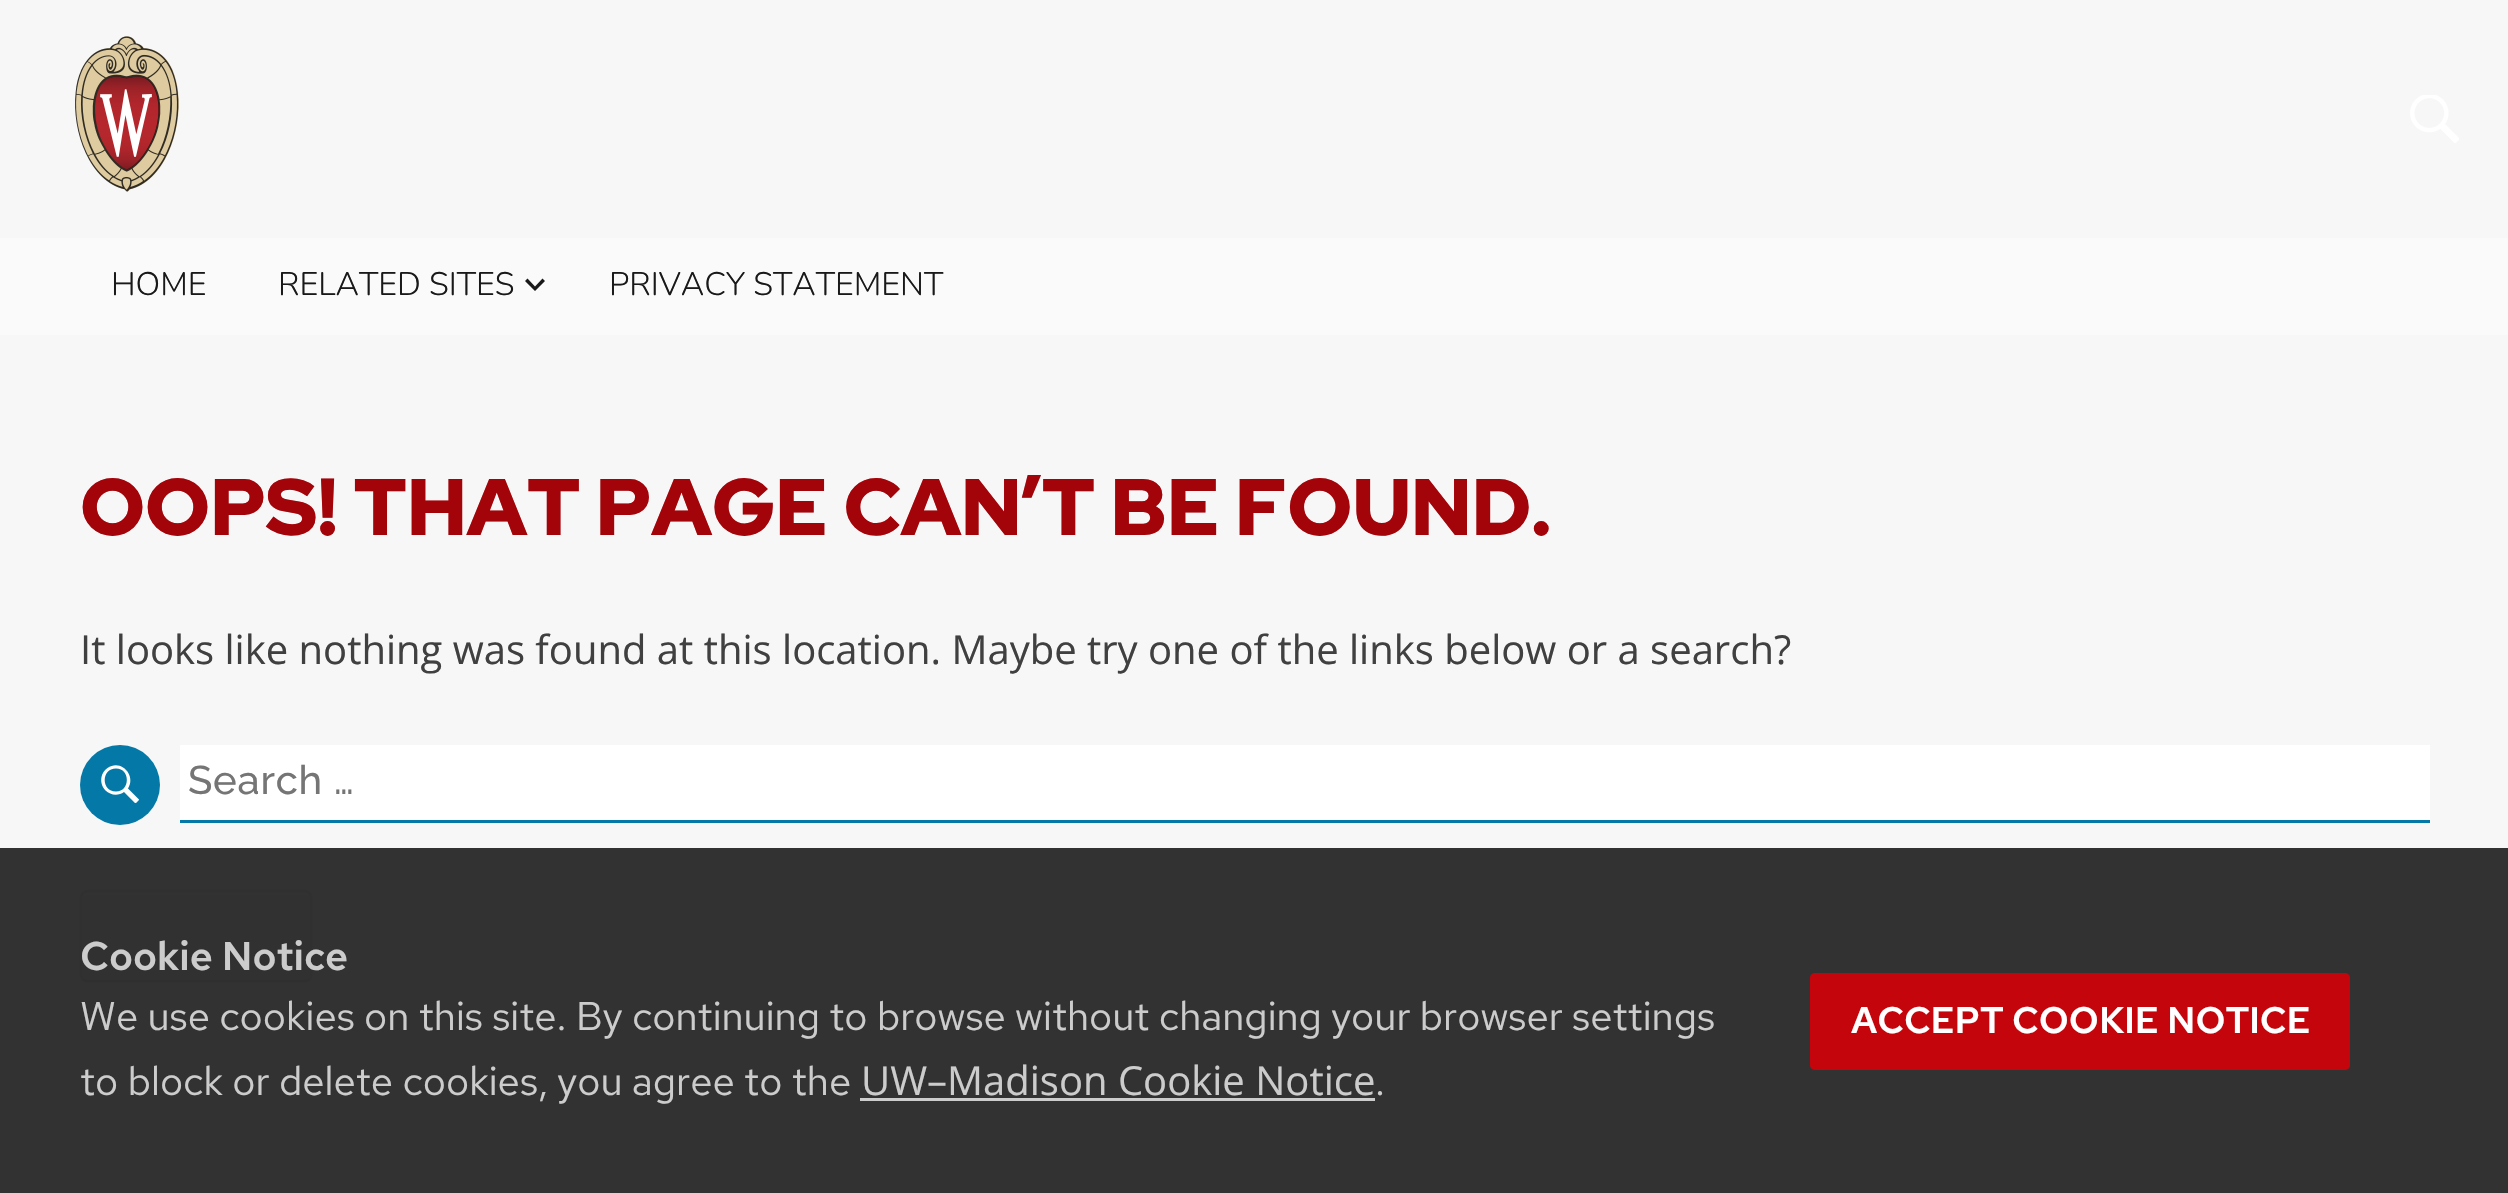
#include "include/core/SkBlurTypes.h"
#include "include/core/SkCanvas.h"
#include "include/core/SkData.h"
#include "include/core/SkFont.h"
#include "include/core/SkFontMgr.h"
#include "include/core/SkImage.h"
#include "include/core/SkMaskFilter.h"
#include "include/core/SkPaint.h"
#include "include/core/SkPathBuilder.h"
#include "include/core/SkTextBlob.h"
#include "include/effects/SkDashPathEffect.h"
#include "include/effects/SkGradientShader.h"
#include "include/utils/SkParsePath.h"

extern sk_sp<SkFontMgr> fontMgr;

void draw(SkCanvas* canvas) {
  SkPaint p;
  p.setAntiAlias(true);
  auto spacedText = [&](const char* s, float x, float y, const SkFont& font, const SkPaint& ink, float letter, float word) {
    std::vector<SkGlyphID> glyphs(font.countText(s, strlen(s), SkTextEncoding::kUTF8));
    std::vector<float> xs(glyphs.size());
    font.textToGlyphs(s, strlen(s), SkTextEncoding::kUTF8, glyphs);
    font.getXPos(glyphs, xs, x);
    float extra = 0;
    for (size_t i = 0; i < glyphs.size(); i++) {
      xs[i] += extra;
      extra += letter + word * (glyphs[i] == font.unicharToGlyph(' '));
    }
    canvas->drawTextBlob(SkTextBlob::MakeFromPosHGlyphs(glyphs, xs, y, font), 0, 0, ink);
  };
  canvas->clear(SkColorSetRGB(247, 247, 247));
  canvas->drawImageRect(SkImages::DeferredFromEncodedData(SkData::MakeFromFileName("images/1.png")), SkRect::MakeLTRB(75, 36, 179, 192), SkSamplingOptions());
  canvas->drawImageRect(SkImages::DeferredFromEncodedData(SkData::MakeFromFileName("images/2.png")), SkRect::MakeLTRB(2410, 95, 2459, 143), SkSamplingOptions());
  p.setColor(SkColorSetRGB(250, 250, 250));
  canvas->drawRect(SkRect::MakeLTRB(0, 238, 2508, 335), p);
  p.setColor(SkColorSetRGB(25, 25, 25));
  canvas->drawPath(SkPathBuilder().moveTo(527.5f, 278.5f).lineTo(535, 286.5f).lineTo(542.5f, 278.5f).lineTo(545, 281).lineTo(535, 291).lineTo(525, 281).close().detach(), p);
  p.setColor(SkColorSetRGB(4, 121, 168));
  canvas->drawCircle(120, 785, 40, p);
  p.setColor(SK_ColorWHITE);
  canvas->drawPath(SkPathBuilder().moveTo(139, 799.5f).lineTo(128, 788.5f).cubicTo(136.5f, 775.5f, 121, 758.5f, 107.5f, 768).cubicTo(104.5f, 770, 102, 773.5f, 101.5f, 777).cubicTo(100.5f, 782, 102, 787, 105.5f, 790.5f).cubicTo(110.5f, 795.5f, 118.5f, 796, 124, 792).lineTo(135, 803).lineTo(136, 803).lineTo(139, 800).close().moveTo(116, 791.5f).cubicTo(101, 791.5f, 101, 768.5f, 116, 768.5f).cubicTo(130.5f, 768.5f, 130.5f, 791.5f, 116, 791.5f).close().detach(), p);
  canvas->drawRect(SkRect::MakeLTRB(180, 745, 2430, 820), p);
  p.setColor(SkColorSetRGB(4, 121, 168));
  canvas->drawRect(SkRect::MakeLTRB(180, 820, 2430, 823), p);
  p.setColor(SkColorSetRGB(230, 230, 230));
  canvas->drawRoundRect(SkRect::MakeLTRB(80, 890, 313, 983), 8, 8, p);
  p.setColor(SkColorSetRGB(243, 243, 243));
  canvas->drawPath(SkPathBuilder().moveTo(88, 895).lineTo(305, 895).cubicTo(308, 895, 310, 897, 310, 900).lineTo(310, 898).cubicTo(310, 895, 308, 893, 305, 893).lineTo(88, 893).cubicTo(86, 893, 83, 895, 83, 897).cubicTo(84, 896, 86, 895, 88, 895).close().detach(), p);
  p.setStyle(SkPaint::kStroke_Style);
  p.setStrokeWidth(2.5f);
  p.setColor(SkColorSetRGB(187, 187, 187));
  canvas->drawPath(SkPathBuilder().moveTo(309.5f, 979.5f).cubicTo(308, 980.5f, 306.5f, 981, 305, 981).lineTo(87.5f, 981).cubicTo(86, 981, 84.5f, 980.5f, 83, 979.5f).detach(), p);
  p.setColor(SkColorSetRGB(204, 204, 204));
  canvas->drawPath(SkPathBuilder().moveTo(83, 979.5f).cubicTo(82, 978, 81, 976.5f, 81, 975).lineTo(81, 897.5f).cubicTo(81, 896, 82, 894.5f, 83, 893).cubicTo(84.5f, 892, 86, 891, 87.5f, 891).lineTo(305, 891).cubicTo(306.5f, 891, 308, 892, 309.5f, 893).cubicTo(310.5f, 894.5f, 311, 896, 311, 897.5f).lineTo(311, 975).cubicTo(311, 976.5f, 310.5f, 978, 309.5f, 979.5f).detach(), p);
  p.setStyle(SkPaint::kFill_Style);
  p.setColor(SkColorSetARGB(242, 40, 39, 40));
  canvas->drawRect(SkRect::MakeLTRB(0, 848, 2508, 1193), p);
  p.setColor(SkColorSetRGB(204, 204, 204));
  canvas->drawRect(SkRect::MakeLTRB(860, 1098, 1375, 1101), p);
  p.setColor(SkColorSetRGB(197, 5, 12));
  canvas->drawRoundRect(SkRect::MakeLTRB(1810, 973, 2350, 1070), 5, 5, p);
  SkFont font1(fontMgr->matchFamilyStyle("Nunito", SkFontStyle(300, SkFontStyle::kNormal_Width, SkFontStyle::kUpright_Slant)), 32.5f);
  font1.setSubpixel(true);
  p.setColor(SkColorSetRGB(25, 25, 25));
  canvas->drawString("HOME", 111, 295, font1, p);
  canvas->drawString("RELATED SITES", 278, 295, font1, p);
  canvas->drawString("PRIVACY STATEMENT", 609, 295, font1, p);
  SkFont font2(fontMgr->matchFamilyStyle("Red Hat Display", SkFontStyle(900, SkFontStyle::kNormal_Width, SkFontStyle::kUpright_Slant)), 80);
  font2.setSubpixel(true);
  p.setColor(SkColorSetRGB(163, 4, 10));
  canvas->drawString("OOPS! THAT PAGE CAN’T BE FOUND.", 80, 535, font2, p);
  SkFont font3(fontMgr->matchFamilyStyle("Open Sans", SkFontStyle::Normal()), 40);
  font3.setSubpixel(true);
  p.setColor(SkColorSetRGB(64, 64, 64));
  canvas->drawString("It looks like nothing was found at this location. Maybe try one of the links below or a search?", 80, 664, font3, p);
  SkFont font4(fontMgr->matchFamilyStyle("Raleway", SkFontStyle(500, SkFontStyle::kNormal_Width, SkFontStyle::kUpright_Slant)), 40);
  font4.setSubpixel(true);
  p.setColor(SkColorSetRGB(117, 117, 117));
  spacedText("Search …", 188, 794, font4, p, 0.75f, 0);
  SkFont font5(fontMgr->matchFamilyStyle("Red Hat Text", SkFontStyle(600, SkFontStyle::kNormal_Width, SkFontStyle::kUpright_Slant)), 40);
  font5.setSubpixel(true);
  p.setColor(SkColorSetRGB(204, 204, 204));
  canvas->drawString("Cookie Notice", 80, 970, font5, p);
  SkFont font6(fontMgr->matchFamilyStyle("Red Hat Text", SkFontStyle::Normal()), 40);
  font6.setSubpixel(true);
  canvas->drawString("We use cookies on this site. By continuing to browse without changing your browser settings", 80, 1030, font6, p);
  canvas->drawString("to block or delete cookies, you agree to the", 80, 1095, font6, p);
  canvas->drawString("UW–Madison Cookie Notice", 861, 1095, font3, p);
  canvas->drawString(".", 1375, 1095, font6, p);
  SkFont font7(fontMgr->matchFamilyStyle("Red Hat Text", SkFontStyle(600, SkFontStyle::kNormal_Width, SkFontStyle::kUpright_Slant)), 37);
  font7.setSubpixel(true);
  p.setColor(SK_ColorWHITE);
  canvas->drawString("ACCEPT COOKIE NOTICE", 1851, 1033, font7, p);
}
